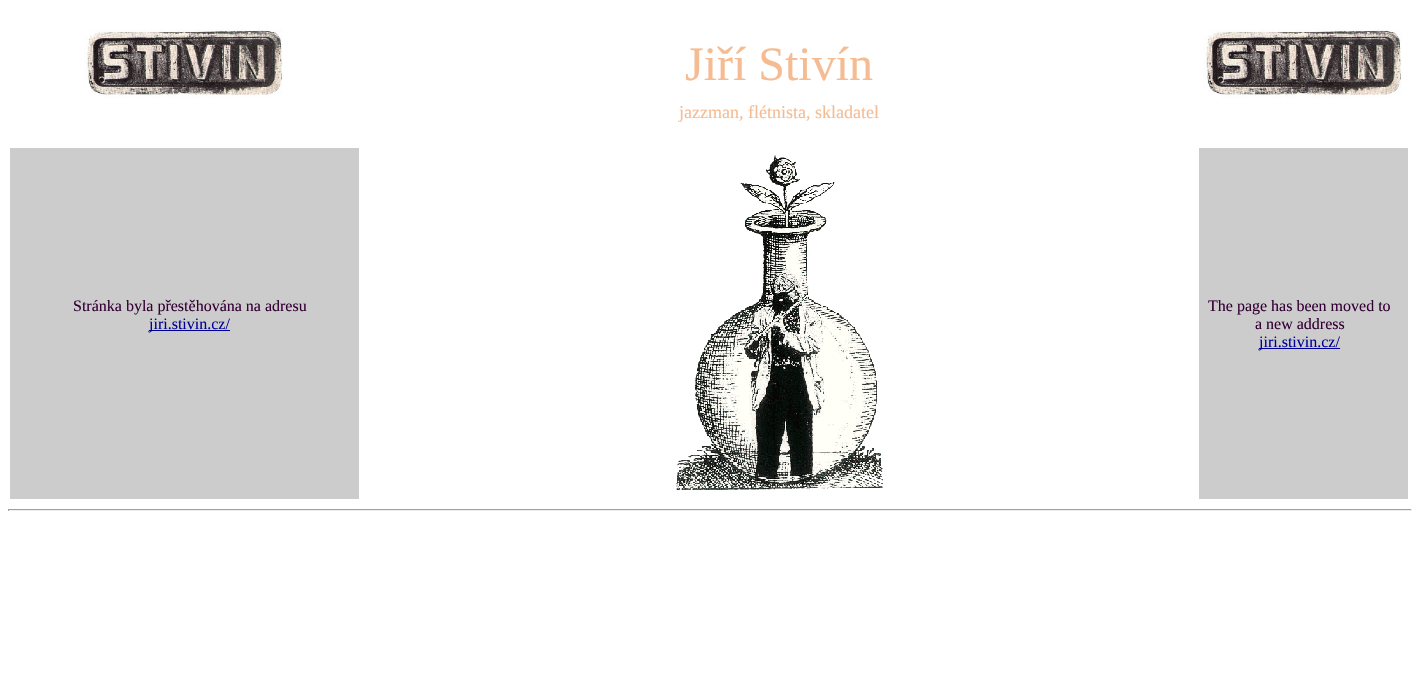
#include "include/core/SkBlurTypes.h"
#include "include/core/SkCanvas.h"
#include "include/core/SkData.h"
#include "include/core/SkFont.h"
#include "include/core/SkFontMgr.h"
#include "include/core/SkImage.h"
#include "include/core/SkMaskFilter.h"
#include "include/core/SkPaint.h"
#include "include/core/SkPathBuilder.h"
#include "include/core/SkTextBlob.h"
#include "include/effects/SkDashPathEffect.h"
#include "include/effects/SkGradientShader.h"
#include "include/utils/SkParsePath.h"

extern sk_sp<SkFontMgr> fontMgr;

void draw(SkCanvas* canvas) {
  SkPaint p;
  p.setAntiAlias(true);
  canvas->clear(SK_ColorWHITE);
  canvas->drawImageRect(SkImages::DeferredFromEncodedData(SkData::MakeFromFileName("images/1.png")), SkRect::MakeLTRB(84, 29, 283, 98), SkSamplingOptions());
  canvas->drawImageRect(SkImages::DeferredFromEncodedData(SkData::MakeFromFileName("images/2.png")), SkRect::MakeLTRB(1203, 29, 1402, 98), SkSamplingOptions());
  p.setColor(SkColorSetRGB(204, 204, 204));
  canvas->drawRect(SkRect::MakeLTRB(10, 148, 359, 499), p);
  p.setColor(SkColorSetRGB(0, 0, 153));
  canvas->drawRect(SkRect::MakeLTRB(149, 330, 230, 331), p);
  canvas->drawImageRect(SkImages::DeferredFromEncodedData(SkData::MakeFromFileName("images/3.png")), SkRect::MakeLTRB(676, 155, 883, 490), SkSamplingOptions());
  p.setColor(SkColorSetRGB(204, 204, 204));
  canvas->drawRect(SkRect::MakeLTRB(1199, 148, 1408, 499), p);
  p.setColor(SkColorSetRGB(0, 0, 153));
  canvas->drawRect(SkRect::MakeLTRB(1259, 348, 1340, 349), p);
  p.setColor(SkColorSetRGB(159, 159, 159));
  canvas->drawRect(SkRect::MakeLTRB(8, 509, 1412, 510), p);
  p.setColor(SkColorSetRGB(238, 238, 238));
  canvas->drawRect(SkRect::MakeLTRB(1411, 509, 1412, 511), p);
  canvas->drawRect(SkRect::MakeLTRB(8, 510, 1412, 511), p);
  p.setColor(SkColorSetRGB(159, 159, 159));
  canvas->drawRect(SkRect::MakeLTRB(8, 509, 9, 511), p);
  SkFont font1(fontMgr->matchFamilyStyle("Liberation Serif", SkFontStyle::Normal()), 48);
  font1.setSubpixel(true);
  p.setColor(SkColorSetRGB(245, 188, 147));
  canvas->drawString("Jiří Stivín", 685, 80, font1, p);
  SkFont font2(fontMgr->matchFamilyStyle("Liberation Serif", SkFontStyle::Normal()), 18);
  font2.setSubpixel(true);
  canvas->drawString("jazzman, flétnista, skladatel", 679, 118, font2, p);
  SkFont font3(fontMgr->matchFamilyStyle("Liberation Serif", SkFontStyle::Normal()), 16);
  font3.setSubpixel(true);
  p.setColor(SkColorSetRGB(51, 0, 51));
  canvas->drawString("Stránka byla přestěhována na adresu", 73, 311, font3, p);
  p.setColor(SkColorSetRGB(0, 0, 153));
  canvas->drawString("jiri.stivin.cz/", 149, 329, font3, p);
  p.setColor(SkColorSetRGB(51, 0, 51));
  canvas->drawString("The page has been moved to", 1208, 311, font3, p);
  canvas->drawString("a new address", 1255, 329, font3, p);
  p.setColor(SkColorSetRGB(0, 0, 153));
  canvas->drawString("jiri.stivin.cz/", 1259, 347, font3, p);
}
